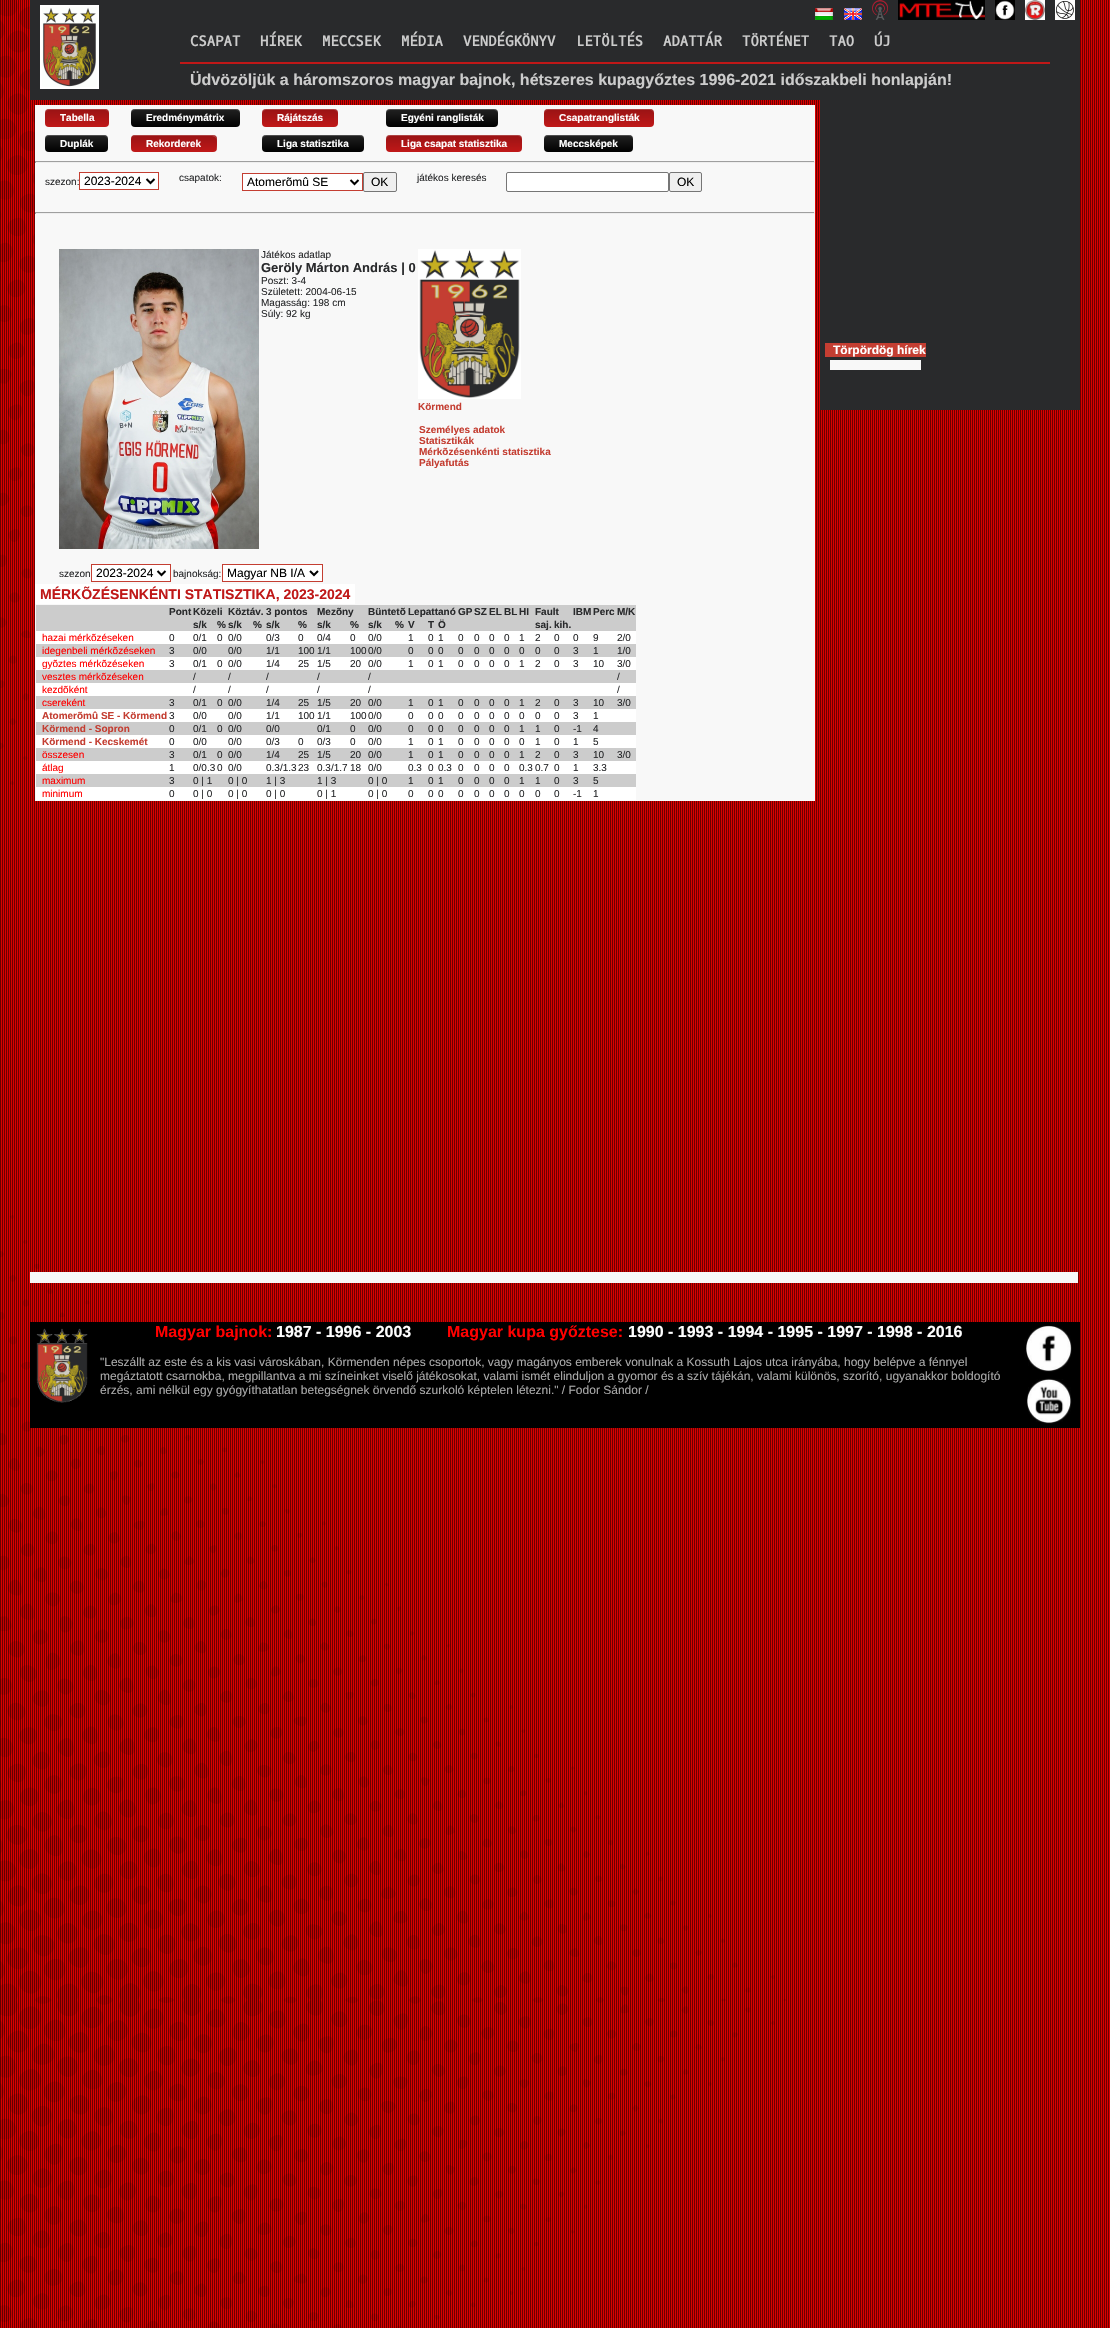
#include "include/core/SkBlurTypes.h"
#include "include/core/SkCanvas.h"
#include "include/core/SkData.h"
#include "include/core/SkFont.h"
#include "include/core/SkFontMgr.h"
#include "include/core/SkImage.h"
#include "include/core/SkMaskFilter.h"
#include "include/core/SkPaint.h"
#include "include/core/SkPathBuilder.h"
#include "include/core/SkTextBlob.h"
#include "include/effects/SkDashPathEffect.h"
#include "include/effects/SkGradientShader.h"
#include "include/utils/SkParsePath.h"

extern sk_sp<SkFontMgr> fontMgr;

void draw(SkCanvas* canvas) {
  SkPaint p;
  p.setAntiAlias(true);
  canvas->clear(SK_ColorWHITE);
  canvas->drawImageRect(SkImages::DeferredFromEncodedData(SkData::MakeFromFileName("images/1.png")), SkRect::MakeLTRB(0, 0, 1110, 2328), SkSamplingOptions());
  p.setColor(SkColorSetRGB(41, 42, 44));
  canvas->drawRect(SkRect::MakeLTRB(30, 0, 1080, 100), p);
  p.setStyle(SkPaint::kStroke_Style);
  p.setStrokeWidth(2);
  p.setColor(SK_ColorWHITE);
  canvas->drawRect(SkRect::MakeLTRB(41, 6, 98, 88), p);
  canvas->drawImageRect(SkImages::DeferredFromEncodedData(SkData::MakeFromFileName("images/2.png")), SkRect::MakeLTRB(42, 7, 97, 87), SkSamplingOptions());
  canvas->drawImageRect(SkImages::DeferredFromEncodedData(SkData::MakeFromFileName("images/3.png")), SkRect::MakeLTRB(815, 8, 833, 20), SkSamplingOptions());
  canvas->drawImageRect(SkImages::DeferredFromEncodedData(SkData::MakeFromFileName("images/4.png")), SkRect::MakeLTRB(844, 8, 862, 20), SkSamplingOptions());
  canvas->drawImageRect(SkImages::DeferredFromEncodedData(SkData::MakeFromFileName("images/5.png")), SkRect::MakeLTRB(872, 0, 888, 20), SkSamplingOptions());
  canvas->drawImageRect(SkImages::DeferredFromEncodedData(SkData::MakeFromFileName("images/6.png")), SkRect::MakeLTRB(898, 0, 985, 20), SkSamplingOptions());
  canvas->drawImageRect(SkImages::DeferredFromEncodedData(SkData::MakeFromFileName("images/7.png")), SkRect::MakeLTRB(995, 0, 1015, 20), SkSamplingOptions());
  canvas->drawImageRect(SkImages::DeferredFromEncodedData(SkData::MakeFromFileName("images/8.png")), SkRect::MakeLTRB(1025, 0, 1045, 20), SkSamplingOptions());
  canvas->drawImageRect(SkImages::DeferredFromEncodedData(SkData::MakeFromFileName("images/9.png")), SkRect::MakeLTRB(1055, 0, 1075, 20), SkSamplingOptions());
  p.setStyle(SkPaint::kFill_Style);
  p.setColor(SkColorSetRGB(192, 24, 24));
  canvas->drawRect(SkRect::MakeLTRB(180, 62, 1050, 64), p);
  p.setColor(SkColorSetRGB(248, 248, 248));
  canvas->drawRect(SkRect::MakeLTRB(35, 105, 815, 801), p);
  {
    const SkColor colors[] = {SkColorSetRGB(153, 19, 20), SkColorSetRGB(192, 24, 24)};
    const float stops[] = {0, 1};
    const SkPoint ends[] = {{77, 109}, {77, 127}};
    p.setShader(SkGradientShader::MakeLinear(ends, colors, stops, 2, SkTileMode::kClamp));
    p.setAlpha(255);
  }
  canvas->drawRoundRect(SkRect::MakeLTRB(45, 109, 109, 127), 4, 4, p);
  p.setShader(nullptr);
  p.setColor(SkColorSetARGB(51, 255, 255, 255));
  canvas->drawPath(SkPathBuilder().moveTo(49, 110).lineTo(105, 110).cubicTo(107, 110, 109, 112, 109, 114).cubicTo(109, 107, 101, 109, 96, 109).lineTo(58, 109).cubicTo(53, 109, 45, 107, 45, 114).cubicTo(45, 112, 47, 110, 49, 110).close().detach(), p);
  {
    const SkColor colors[] = {SkColorSetRGB(34, 34, 34), SK_ColorBLACK};
    const float stops[] = {0, 1};
    const SkPoint ends[] = {{186, 109}, {186, 127}};
    p.setShader(SkGradientShader::MakeLinear(ends, colors, stops, 2, SkTileMode::kClamp));
    p.setAlpha(255);
  }
  canvas->drawRoundRect(SkRect::MakeLTRB(131, 109, 240, 127), 4, 4, p);
  p.setShader(nullptr);
  p.setColor(SkColorSetARGB(51, 255, 255, 255));
  canvas->drawPath(SkPathBuilder().moveTo(135, 110).lineTo(236, 110).cubicTo(238, 110, 240, 112, 240, 114).cubicTo(240, 105, 223, 109, 219, 109).lineTo(152, 109).cubicTo(148, 109, 131, 105, 131, 114).cubicTo(131, 112, 133, 110, 135, 110).close().detach(), p);
  {
    const SkColor colors[] = {SkColorSetRGB(153, 19, 20), SkColorSetRGB(192, 24, 24)};
    const float stops[] = {0, 1};
    const SkPoint ends[] = {{300, 109}, {300, 127}};
    p.setShader(SkGradientShader::MakeLinear(ends, colors, stops, 2, SkTileMode::kClamp));
    p.setAlpha(255);
  }
  canvas->drawRoundRect(SkRect::MakeLTRB(262, 109, 338, 127), 4, 4, p);
  p.setShader(nullptr);
  p.setColor(SkColorSetARGB(51, 255, 255, 255));
  canvas->drawPath(SkPathBuilder().moveTo(266, 110).lineTo(334, 110).cubicTo(336, 110, 338, 112, 338, 114).cubicTo(338, 106, 328, 109, 323, 109).lineTo(277, 109).cubicTo(272, 109, 262, 106, 262, 114).cubicTo(262, 112, 264, 110, 266, 110).close().detach(), p);
  {
    const SkColor colors[] = {SkColorSetRGB(34, 34, 34), SK_ColorBLACK};
    const float stops[] = {0, 1};
    const SkPoint ends[] = {{442, 109}, {442, 127}};
    p.setShader(SkGradientShader::MakeLinear(ends, colors, stops, 2, SkTileMode::kClamp));
    p.setAlpha(255);
  }
  canvas->drawRoundRect(SkRect::MakeLTRB(386, 109, 498, 127), 4, 4, p);
  p.setShader(nullptr);
  p.setColor(SkColorSetARGB(51, 255, 255, 255));
  canvas->drawPath(SkPathBuilder().moveTo(390, 110).lineTo(494, 110).cubicTo(496, 110, 498, 112, 498, 114).cubicTo(498, 104, 480, 109, 477, 109).lineTo(407, 109).cubicTo(404, 109, 386, 104, 386, 114).cubicTo(386, 112, 388, 110, 390, 110).close().detach(), p);
  {
    const SkColor colors[] = {SkColorSetRGB(153, 19, 20), SkColorSetRGB(192, 24, 24)};
    const float stops[] = {0, 1};
    const SkPoint ends[] = {{599, 109}, {599, 127}};
    p.setShader(SkGradientShader::MakeLinear(ends, colors, stops, 2, SkTileMode::kClamp));
    p.setAlpha(255);
  }
  canvas->drawRoundRect(SkRect::MakeLTRB(544, 109, 654, 127), 4, 4, p);
  p.setShader(nullptr);
  p.setColor(SkColorSetARGB(51, 255, 255, 255));
  canvas->drawPath(SkPathBuilder().moveTo(548, 110).lineTo(650, 110).cubicTo(652, 110, 654, 112, 654, 114).cubicTo(654, 105, 637, 109, 633, 109).lineTo(565, 109).cubicTo(561, 109, 544, 105, 544, 114).cubicTo(544, 112, 546, 110, 548, 110).close().detach(), p);
  {
    const SkColor colors[] = {SkColorSetRGB(34, 34, 34), SK_ColorBLACK};
    const float stops[] = {0, 1};
    const SkPoint ends[] = {{77, 135}, {77, 152}};
    p.setShader(SkGradientShader::MakeLinear(ends, colors, stops, 2, SkTileMode::kClamp));
    p.setAlpha(255);
  }
  canvas->drawRoundRect(SkRect::MakeLTRB(45, 135, 108, 152), 4, 4, p);
  p.setShader(nullptr);
  p.setColor(SkColorSetARGB(51, 255, 255, 255));
  canvas->drawPath(SkPathBuilder().moveTo(49, 136).lineTo(104, 136).cubicTo(106, 136, 108, 138, 108, 140).cubicTo(108, 133, 100, 135, 95, 135).lineTo(58, 135).cubicTo(53, 135, 45, 133, 45, 140).cubicTo(45, 138, 47, 136, 49, 136).close().detach(), p);
  {
    const SkColor colors[] = {SkColorSetRGB(153, 19, 20), SkColorSetRGB(192, 24, 24)};
    const float stops[] = {0, 1};
    const SkPoint ends[] = {{174, 135}, {174, 152}};
    p.setShader(SkGradientShader::MakeLinear(ends, colors, stops, 2, SkTileMode::kClamp));
    p.setAlpha(255);
  }
  canvas->drawRoundRect(SkRect::MakeLTRB(131, 135, 217, 152), 4, 4, p);
  p.setShader(nullptr);
  p.setColor(SkColorSetARGB(51, 255, 255, 255));
  canvas->drawPath(SkPathBuilder().moveTo(135, 136).lineTo(212, 136).lineTo(215, 137).cubicTo(218, 140, 217, 146, 216, 150).cubicTo(218, 148, 217, 144, 217, 142).cubicTo(217, 132, 210, 135, 200, 135).lineTo(148, 135).cubicTo(145, 135, 131, 132, 131, 140).cubicTo(131, 138, 132, 136, 135, 136).close().detach(), p);
  {
    const SkColor colors[] = {SkColorSetRGB(34, 34, 34), SK_ColorBLACK};
    const float stops[] = {0, 1};
    const SkPoint ends[] = {{313, 135}, {313, 152}};
    p.setShader(SkGradientShader::MakeLinear(ends, colors, stops, 2, SkTileMode::kClamp));
    p.setAlpha(255);
  }
  canvas->drawRoundRect(SkRect::MakeLTRB(262, 135, 364, 152), 4, 4, p);
  p.setShader(nullptr);
  p.setColor(SkColorSetARGB(51, 255, 255, 255));
  canvas->drawPath(SkPathBuilder().moveTo(266, 136).lineTo(360, 136).cubicTo(362, 136, 364, 138, 364, 140).cubicTo(364, 131, 348, 135, 344, 135).lineTo(282, 135).cubicTo(278, 135, 262, 131, 262, 140).cubicTo(262, 138, 264, 136, 266, 136).close().detach(), p);
  {
    const SkColor colors[] = {SkColorSetRGB(153, 19, 20), SkColorSetRGB(192, 24, 24)};
    const float stops[] = {0, 1};
    const SkPoint ends[] = {{454, 135}, {454, 152}};
    p.setShader(SkGradientShader::MakeLinear(ends, colors, stops, 2, SkTileMode::kClamp));
    p.setAlpha(255);
  }
  canvas->drawRoundRect(SkRect::MakeLTRB(386, 135, 522, 152), 4, 4, p);
  p.setShader(nullptr);
  p.setColor(SkColorSetARGB(51, 255, 255, 255));
  canvas->drawPath(SkPathBuilder().moveTo(390, 136).lineTo(518, 136).cubicTo(520, 136, 522, 138, 522, 140).lineTo(522, 139).cubicTo(522, 137, 520, 135, 518, 135).lineTo(390, 135).cubicTo(388, 135, 386, 137, 386, 139).lineTo(386, 140).cubicTo(386, 138, 388, 136, 390, 136).close().detach(), p);
  {
    const SkColor colors[] = {SkColorSetRGB(34, 34, 34), SK_ColorBLACK};
    const float stops[] = {0, 1};
    const SkPoint ends[] = {{589, 135}, {589, 152}};
    p.setShader(SkGradientShader::MakeLinear(ends, colors, stops, 2, SkTileMode::kClamp));
    p.setAlpha(255);
  }
  canvas->drawRoundRect(SkRect::MakeLTRB(544, 135, 633, 152), 4, 4, p);
  p.setShader(nullptr);
  p.setColor(SkColorSetARGB(51, 255, 255, 255));
  canvas->drawPath(SkPathBuilder().moveTo(548, 136).lineTo(629, 136).cubicTo(631, 136, 633, 138, 633, 140).cubicTo(633, 132, 620, 135, 616, 135).lineTo(562, 135).cubicTo(557, 135, 544, 132, 544, 140).cubicTo(544, 138, 546, 136, 548, 136).close().detach(), p);
  p.setColor(SkColorSetRGB(159, 159, 159));
  canvas->drawRect(SkRect::MakeLTRB(35, 161, 815, 162), p);
  p.setColor(SkColorSetRGB(238, 238, 238));
  canvas->drawRect(SkRect::MakeLTRB(814, 161, 815, 163), p);
  canvas->drawRect(SkRect::MakeLTRB(35, 162, 815, 163), p);
  p.setColor(SkColorSetRGB(159, 159, 159));
  canvas->drawRect(SkRect::MakeLTRB(35, 161, 36, 163), p);
  p.setColor(SK_ColorWHITE);
  canvas->drawRect(SkRect::MakeLTRB(79.5f, 172.5f, 158.5f, 189.5f), p);
  p.setStyle(SkPaint::kStroke_Style);
  p.setStrokeWidth(1);
  p.setColor(SkColorSetRGB(196, 62, 50));
  canvas->drawRect(SkRect::MakeLTRB(79.5f, 172.5f, 158.5f, 189.5f), p);
  p.setStrokeWidth(2);
  p.setColor(SK_ColorBLACK);
  canvas->drawPath(SkPathBuilder().moveTo(146.5f, 179).lineTo(150.5f, 183).lineTo(154.5f, 179).detach(), p);
  p.setStyle(SkPaint::kFill_Style);
  p.setColor(SK_ColorWHITE);
  canvas->drawRect(SkRect::MakeLTRB(242.5f, 173.5f, 362.5f, 190.5f), p);
  p.setStyle(SkPaint::kStroke_Style);
  p.setStrokeWidth(1);
  p.setColor(SkColorSetRGB(196, 62, 50));
  canvas->drawRect(SkRect::MakeLTRB(242.5f, 173.5f, 362.5f, 190.5f), p);
  p.setStrokeWidth(2);
  p.setColor(SK_ColorBLACK);
  canvas->drawPath(SkPathBuilder().moveTo(350.5f, 180).lineTo(354.5f, 184).lineTo(358.5f, 180).detach(), p);
  p.setStyle(SkPaint::kFill_Style);
  p.setColor(SkColorSetRGB(239, 239, 239));
  canvas->drawRoundRect(SkRect::MakeLTRB(363.5f, 172.5f, 396.5f, 191.5f), 1.5f, 1.5f, p);
  p.setStyle(SkPaint::kStroke_Style);
  p.setStrokeWidth(1);
  p.setColor(SkColorSetRGB(118, 118, 118));
  canvas->drawRoundRect(SkRect::MakeLTRB(363.5f, 172.5f, 396.5f, 191.5f), 1.5f, 1.5f, p);
  p.setStyle(SkPaint::kFill_Style);
  p.setColor(SK_ColorWHITE);
  canvas->drawRoundRect(SkRect::MakeLTRB(506.5f, 172.5f, 668.5f, 191.5f), 1.5f, 1.5f, p);
  p.setStyle(SkPaint::kStroke_Style);
  p.setColor(SkColorSetRGB(118, 118, 118));
  canvas->drawRoundRect(SkRect::MakeLTRB(506.5f, 172.5f, 668.5f, 191.5f), 1.5f, 1.5f, p);
  p.setStyle(SkPaint::kFill_Style);
  p.setColor(SkColorSetRGB(239, 239, 239));
  canvas->drawRoundRect(SkRect::MakeLTRB(669.5f, 172.5f, 701.5f, 191.5f), 1.5f, 1.5f, p);
  p.setStyle(SkPaint::kStroke_Style);
  p.setColor(SkColorSetRGB(118, 118, 118));
  canvas->drawRoundRect(SkRect::MakeLTRB(669.5f, 172.5f, 701.5f, 191.5f), 1.5f, 1.5f, p);
  p.setStyle(SkPaint::kFill_Style);
  p.setColor(SkColorSetRGB(159, 159, 159));
  canvas->drawRect(SkRect::MakeLTRB(35, 212, 815, 213), p);
  p.setColor(SkColorSetRGB(238, 238, 238));
  canvas->drawRect(SkRect::MakeLTRB(814, 212, 815, 214), p);
  canvas->drawRect(SkRect::MakeLTRB(35, 213, 815, 214), p);
  p.setColor(SkColorSetRGB(159, 159, 159));
  canvas->drawRect(SkRect::MakeLTRB(35, 212, 36, 214), p);
  canvas->drawImageRect(SkImages::DeferredFromEncodedData(SkData::MakeFromFileName("images/10.png")), SkRect::MakeLTRB(59, 249, 259, 549), SkSamplingOptions());
  canvas->drawImageRect(SkImages::DeferredFromEncodedData(SkData::MakeFromFileName("images/11.png")), SkRect::MakeLTRB(418, 249, 521, 399), SkSamplingOptions());
  p.setColor(SK_ColorWHITE);
  canvas->drawRect(SkRect::MakeLTRB(91.5f, 564.5f, 170.5f, 581.5f), p);
  p.setStyle(SkPaint::kStroke_Style);
  p.setColor(SkColorSetRGB(196, 62, 50));
  canvas->drawRect(SkRect::MakeLTRB(91.5f, 564.5f, 170.5f, 581.5f), p);
  p.setStrokeWidth(2);
  p.setColor(SK_ColorBLACK);
  canvas->drawPath(SkPathBuilder().moveTo(157.5f, 571).lineTo(161.5f, 575).lineTo(165.5f, 571).detach(), p);
  p.setStyle(SkPaint::kFill_Style);
  p.setColor(SK_ColorWHITE);
  canvas->drawRect(SkRect::MakeLTRB(222.5f, 564.5f, 322.5f, 581.5f), p);
  p.setStyle(SkPaint::kStroke_Style);
  p.setStrokeWidth(1);
  p.setColor(SkColorSetRGB(196, 62, 50));
  canvas->drawRect(SkRect::MakeLTRB(222.5f, 564.5f, 322.5f, 581.5f), p);
  p.setStrokeWidth(2);
  p.setColor(SK_ColorBLACK);
  canvas->drawPath(SkPathBuilder().moveTo(310, 571).lineTo(314, 575).lineTo(318, 571).detach(), p);
  p.setStyle(SkPaint::kFill_Style);
  p.setColor(SK_ColorWHITE);
  canvas->drawRect(SkRect::MakeLTRB(35, 584, 355, 604), p);
  p.setColor(SkColorSetRGB(204, 204, 204));
  canvas->drawRect(SkRect::MakeLTRB(36, 605, 636, 631), p);
  p.setColor(SK_ColorWHITE);
  canvas->drawRect(SkRect::MakeLTRB(36, 631, 636, 644), p);
  p.setColor(SkColorSetRGB(204, 204, 204));
  canvas->drawRect(SkRect::MakeLTRB(36, 644, 636, 657), p);
  p.setColor(SK_ColorWHITE);
  canvas->drawRect(SkRect::MakeLTRB(36, 657, 636, 670), p);
  p.setColor(SkColorSetRGB(204, 204, 204));
  canvas->drawRect(SkRect::MakeLTRB(36, 670, 636, 683), p);
  p.setColor(SK_ColorWHITE);
  canvas->drawRect(SkRect::MakeLTRB(36, 683, 636, 696), p);
  p.setColor(SkColorSetRGB(204, 204, 204));
  canvas->drawRect(SkRect::MakeLTRB(36, 696, 636, 709), p);
  p.setColor(SK_ColorWHITE);
  canvas->drawRect(SkRect::MakeLTRB(36, 709, 636, 722), p);
  p.setColor(SkColorSetRGB(204, 204, 204));
  canvas->drawRect(SkRect::MakeLTRB(36, 722, 636, 735), p);
  p.setColor(SK_ColorWHITE);
  canvas->drawRect(SkRect::MakeLTRB(36, 735, 636, 748), p);
  p.setColor(SkColorSetRGB(204, 204, 204));
  canvas->drawRect(SkRect::MakeLTRB(36, 748, 636, 761), p);
  p.setColor(SK_ColorWHITE);
  canvas->drawRect(SkRect::MakeLTRB(36, 761, 636, 774), p);
  p.setColor(SkColorSetRGB(204, 204, 204));
  canvas->drawRect(SkRect::MakeLTRB(36, 774, 636, 787), p);
  p.setColor(SK_ColorWHITE);
  canvas->drawRect(SkRect::MakeLTRB(36, 787, 636, 800), p);
  p.setColor(SkColorSetRGB(41, 42, 44));
  canvas->drawRect(SkRect::MakeLTRB(820, 100, 1080, 410), p);
  p.setColor(SkColorSetRGB(196, 62, 50));
  canvas->drawRect(SkRect::MakeLTRB(825, 343, 926, 357), p);
  p.setColor(SkColorSetRGB(248, 248, 248));
  canvas->drawRect(SkRect::MakeLTRB(830, 360, 921, 370), p);
  canvas->drawRect(SkRect::MakeLTRB(30, 1272, 1078, 1283), p);
  p.setColor(SK_ColorBLACK);
  canvas->drawRect(SkRect::MakeLTRB(30, 1322, 1080, 1428), p);
  canvas->drawImageRect(SkImages::DeferredFromEncodedData(SkData::MakeFromFileName("images/12.png")), SkRect::MakeLTRB(36, 1328, 88, 1403), SkSamplingOptions());
  canvas->drawImageRect(SkImages::DeferredFromEncodedData(SkData::MakeFromFileName("images/13.png")), SkRect::MakeLTRB(1024, 1325, 1072, 1372), SkSamplingOptions());
  canvas->drawImageRect(SkImages::DeferredFromEncodedData(SkData::MakeFromFileName("images/14.png")), SkRect::MakeLTRB(1026, 1378, 1072, 1424), SkSamplingOptions());
  SkFont font1(fontMgr->matchFamilyStyle("Oxygen Mono", SkFontStyle::Bold()), 14);
  font1.setSubpixel(true);
  p.setColor(SkColorSetRGB(204, 204, 204));
  canvas->drawString("CSAPAT", 190, 46, font1, p);
  canvas->drawString("HÍREK", 260, 46, font1, p);
  canvas->drawString("MECCSEK", 322, 46, font1, p);
  canvas->drawString("MÉDIA", 401, 46, font1, p);
  canvas->drawString("VENDÉGKÖNYV", 463, 46, font1, p);
  canvas->drawString("LETÖLTÉS", 576, 46, font1, p);
  canvas->drawString("ADATTÁR", 663, 46, font1, p);
  canvas->drawString("TÖRTÉNET", 742, 46, font1, p);
  canvas->drawString("TAO", 829, 46, font1, p);
  canvas->drawString("ÚJ", 874, 46, font1, p);
  SkFont font2(fontMgr->matchFamilyStyle("Liberation Sans", SkFontStyle::Bold()), 16);
  font2.setSubpixel(true);
  canvas->drawString("Üdvözöljük a háromszoros magyar bajnok, hétszeres kupagyőztes 1996-2021 időszakbeli honlapján!", 190, 85, font2, p);
  SkFont font3(fontMgr->matchFamilyStyle("Liberation Sans", SkFontStyle::Bold()), 10);
  font3.setSubpixel(true);
  p.setColor(SK_ColorWHITE);
  canvas->drawString("Tabella", 60, 121, font3, p);
  canvas->drawString("Eredménymátrix", 146, 121, font3, p);
  canvas->drawString("Rájátszás", 277, 121, font3, p);
  canvas->drawString("Egyéni ranglisták", 401, 121, font3, p);
  canvas->drawString("Csapatranglisták", 559, 121, font3, p);
  canvas->drawString("Duplák", 60, 147, font3, p);
  canvas->drawString("Rekorderek", 146, 147, font3, p);
  canvas->drawString("Liga statisztika", 277, 147, font3, p);
  canvas->drawString("Liga csapat statisztika", 401, 147, font3, p);
  canvas->drawString("Meccsképek", 559, 147, font3, p);
  SkFont font4(fontMgr->matchFamilyStyle("Liberation Sans", SkFontStyle::Normal()), 10);
  font4.setSubpixel(true);
  p.setColor(SkColorSetRGB(41, 42, 44));
  canvas->drawString("szezon:", 45, 185, font4, p);
  SkFont font5(fontMgr->matchFamilyStyle("Liberation Sans", SkFontStyle::Normal()), 12);
  font5.setSubpixel(true);
  p.setColor(SK_ColorBLACK);
  canvas->drawString("2023-2024", 84, 185, font5, p);
  p.setColor(SkColorSetRGB(41, 42, 44));
  canvas->drawString("csapatok:", 179, 181, font4, p);
  p.setColor(SK_ColorBLACK);
  canvas->drawString("Atomerõmû SE", 247, 186, font5, p);
  canvas->drawString("OK", 371, 186, font5, p);
  p.setColor(SkColorSetRGB(41, 42, 44));
  canvas->drawString("játékos keresés", 417, 181, font4, p);
  p.setColor(SK_ColorBLACK);
  canvas->drawString("OK", 677, 186, font5, p);
  p.setColor(SkColorSetRGB(41, 42, 44));
  canvas->drawString("Játékos adatlap", 261, 258, font4, p);
  SkFont font6(fontMgr->matchFamilyStyle("Liberation Sans", SkFontStyle::Bold()), 13);
  font6.setSubpixel(true);
  canvas->drawString("Geröly Márton András | 0", 261, 272, font6, p);
  canvas->drawString("Poszt: 3-4", 261, 284, font4, p);
  canvas->drawString("Született: 2004-06-15", 261, 295, font4, p);
  canvas->drawString("Magasság: 198 cm", 261, 306, font4, p);
  canvas->drawString("Súly: 92 kg", 261, 317, font4, p);
  p.setColor(SkColorSetRGB(196, 62, 50));
  canvas->drawString("Körmend", 418, 410, font3, p);
  canvas->drawString("Személyes adatok", 419, 433, font3, p);
  canvas->drawString("Statisztikák", 419, 444, font3, p);
  canvas->drawString("Mérkõzésenkénti statisztika", 419, 455, font3, p);
  canvas->drawString("Pályafutás", 419, 466, font3, p);
  p.setColor(SkColorSetRGB(41, 42, 44));
  canvas->drawString("szezon", 59, 577, font4, p);
  p.setColor(SK_ColorBLACK);
  canvas->drawString("2023-2024", 96, 577, font5, p);
  p.setColor(SkColorSetRGB(41, 42, 44));
  canvas->drawString("bajnokság:", 173, 577, font4, p);
  p.setColor(SK_ColorBLACK);
  canvas->drawString("Magyar NB I/A", 227, 577, font5, p);
  SkFont font7(fontMgr->matchFamilyStyle("Liberation Sans", SkFontStyle::Bold()), 14);
  font7.setSubpixel(true);
  p.setColor(SkColorSetRGB(191, 24, 24));
  canvas->drawString("MÉRKÕZÉSENKÉNTI STATISZTIKA, 2023-2024", 40, 599, font7, p);
  p.setColor(SkColorSetRGB(41, 42, 44));
  canvas->drawString("Pont", 169, 615, font3, p);
  canvas->drawString("Közeli", 193, 615, font3, p);
  canvas->drawString("Köztáv.", 228, 615, font3, p);
  canvas->drawString("3 pontos", 266, 615, font3, p);
  canvas->drawString("Mezõny", 317, 615, font3, p);
  canvas->drawString("Büntetõ", 368, 615, font3, p);
  canvas->drawString("Lepattanó", 408, 615, font3, p);
  canvas->drawString("GP", 458, 615, font3, p);
  canvas->drawString("SZ", 474, 615, font3, p);
  canvas->drawString("EL", 489, 615, font3, p);
  canvas->drawString("BL", 504, 615, font3, p);
  canvas->drawString("HI", 519, 615, font3, p);
  canvas->drawString("Fault", 535, 615, font3, p);
  canvas->drawString("IBM", 573, 615, font3, p);
  canvas->drawString("Perc", 593, 615, font3, p);
  canvas->drawString("M/K", 617, 615, font3, p);
  canvas->drawString("s/k", 193, 628, font3, p);
  canvas->drawString("%", 217, 628, font3, p);
  canvas->drawString("s/k", 228, 628, font3, p);
  canvas->drawString("%", 253, 628, font3, p);
  canvas->drawString("s/k", 266, 628, font3, p);
  canvas->drawString("%", 298, 628, font3, p);
  canvas->drawString("s/k", 317, 628, font3, p);
  canvas->drawString("%", 350, 628, font3, p);
  canvas->drawString("s/k", 368, 628, font3, p);
  canvas->drawString("%", 395, 628, font3, p);
  canvas->drawString("V", 408, 628, font3, p);
  canvas->drawString("T", 428, 628, font3, p);
  canvas->drawString("Ö", 438, 628, font3, p);
  canvas->drawString("saj.", 535, 628, font3, p);
  canvas->drawString("kih.", 554, 628, font3, p);
  p.setColor(SkColorSetRGB(255, 0, 0));
  canvas->drawString("hazai mérkõzéseken", 42, 641, font4, p);
  p.setColor(SkColorSetRGB(41, 42, 44));
  canvas->drawString("0", 169, 641, font4, p);
  canvas->drawString("0/1", 193, 641, font4, p);
  canvas->drawString("0", 217, 641, font4, p);
  canvas->drawString("0/0", 228, 641, font4, p);
  canvas->drawString("0/3", 266, 641, font4, p);
  canvas->drawString("0", 298, 641, font4, p);
  canvas->drawString("0/4", 317, 641, font4, p);
  canvas->drawString("0", 350, 641, font4, p);
  canvas->drawString("0/0", 368, 641, font4, p);
  canvas->drawString("1", 408, 641, font4, p);
  canvas->drawString("0", 428, 641, font4, p);
  canvas->drawString("1", 438, 641, font4, p);
  canvas->drawString("0", 458, 641, font4, p);
  canvas->drawString("0", 474, 641, font4, p);
  canvas->drawString("0", 489, 641, font4, p);
  canvas->drawString("0", 504, 641, font4, p);
  canvas->drawString("1", 519, 641, font4, p);
  canvas->drawString("2", 535, 641, font4, p);
  canvas->drawString("0", 554, 641, font4, p);
  canvas->drawString("0", 573, 641, font4, p);
  canvas->drawString("9", 593, 641, font4, p);
  canvas->drawString("2/0", 617, 641, font4, p);
  p.setColor(SkColorSetRGB(255, 0, 0));
  canvas->drawString("idegenbeli mérkõzéseken", 42, 654, font4, p);
  p.setColor(SkColorSetRGB(41, 42, 44));
  canvas->drawString("3", 169, 654, font4, p);
  canvas->drawString("0/0", 193, 654, font4, p);
  canvas->drawString("0/0", 228, 654, font4, p);
  canvas->drawString("1/1", 266, 654, font4, p);
  canvas->drawString("100", 298, 654, font4, p);
  canvas->drawString("1/1", 317, 654, font4, p);
  canvas->drawString("100", 350, 654, font4, p);
  canvas->drawString("0/0", 368, 654, font4, p);
  canvas->drawString("0", 408, 654, font4, p);
  canvas->drawString("0", 428, 654, font4, p);
  canvas->drawString("0", 438, 654, font4, p);
  canvas->drawString("0", 458, 654, font4, p);
  canvas->drawString("0", 474, 654, font4, p);
  canvas->drawString("0", 489, 654, font4, p);
  canvas->drawString("0", 504, 654, font4, p);
  canvas->drawString("0", 519, 654, font4, p);
  canvas->drawString("0", 535, 654, font4, p);
  canvas->drawString("0", 554, 654, font4, p);
  canvas->drawString("3", 573, 654, font4, p);
  canvas->drawString("1", 593, 654, font4, p);
  canvas->drawString("1/0", 617, 654, font4, p);
  p.setColor(SkColorSetRGB(255, 0, 0));
  canvas->drawString("gyõztes mérkõzéseken", 42, 667, font4, p);
  p.setColor(SkColorSetRGB(41, 42, 44));
  canvas->drawString("3", 169, 667, font4, p);
  canvas->drawString("0/1", 193, 667, font4, p);
  canvas->drawString("0", 217, 667, font4, p);
  canvas->drawString("0/0", 228, 667, font4, p);
  canvas->drawString("1/4", 266, 667, font4, p);
  canvas->drawString("25", 298, 667, font4, p);
  canvas->drawString("1/5", 317, 667, font4, p);
  canvas->drawString("20", 350, 667, font4, p);
  canvas->drawString("0/0", 368, 667, font4, p);
  canvas->drawString("1", 408, 667, font4, p);
  canvas->drawString("0", 428, 667, font4, p);
  canvas->drawString("1", 438, 667, font4, p);
  canvas->drawString("0", 458, 667, font4, p);
  canvas->drawString("0", 474, 667, font4, p);
  canvas->drawString("0", 489, 667, font4, p);
  canvas->drawString("0", 504, 667, font4, p);
  canvas->drawString("1", 519, 667, font4, p);
  canvas->drawString("2", 535, 667, font4, p);
  canvas->drawString("0", 554, 667, font4, p);
  canvas->drawString("3", 573, 667, font4, p);
  canvas->drawString("10", 593, 667, font4, p);
  canvas->drawString("3/0", 617, 667, font4, p);
  p.setColor(SkColorSetRGB(255, 0, 0));
  canvas->drawString("vesztes mérkõzéseken", 42, 680, font4, p);
  p.setColor(SkColorSetRGB(41, 42, 44));
  canvas->drawString("/", 193, 680, font4, p);
  canvas->drawString("/", 228, 680, font4, p);
  canvas->drawString("/", 266, 680, font4, p);
  canvas->drawString("/", 317, 680, font4, p);
  canvas->drawString("/", 368, 680, font4, p);
  canvas->drawString("/", 617, 680, font4, p);
  p.setColor(SkColorSetRGB(255, 0, 0));
  canvas->drawString("kezdõként", 42, 693, font4, p);
  p.setColor(SkColorSetRGB(41, 42, 44));
  canvas->drawString("/", 193, 693, font4, p);
  canvas->drawString("/", 228, 693, font4, p);
  canvas->drawString("/", 266, 693, font4, p);
  canvas->drawString("/", 317, 693, font4, p);
  canvas->drawString("/", 368, 693, font4, p);
  canvas->drawString("/", 617, 693, font4, p);
  p.setColor(SkColorSetRGB(255, 0, 0));
  canvas->drawString("csereként", 42, 706, font4, p);
  p.setColor(SkColorSetRGB(41, 42, 44));
  canvas->drawString("3", 169, 706, font4, p);
  canvas->drawString("0/1", 193, 706, font4, p);
  canvas->drawString("0", 217, 706, font4, p);
  canvas->drawString("0/0", 228, 706, font4, p);
  canvas->drawString("1/4", 266, 706, font4, p);
  canvas->drawString("25", 298, 706, font4, p);
  canvas->drawString("1/5", 317, 706, font4, p);
  canvas->drawString("20", 350, 706, font4, p);
  canvas->drawString("0/0", 368, 706, font4, p);
  canvas->drawString("1", 408, 706, font4, p);
  canvas->drawString("0", 428, 706, font4, p);
  canvas->drawString("1", 438, 706, font4, p);
  canvas->drawString("0", 458, 706, font4, p);
  canvas->drawString("0", 474, 706, font4, p);
  canvas->drawString("0", 489, 706, font4, p);
  canvas->drawString("0", 504, 706, font4, p);
  canvas->drawString("1", 519, 706, font4, p);
  canvas->drawString("2", 535, 706, font4, p);
  canvas->drawString("0", 554, 706, font4, p);
  canvas->drawString("3", 573, 706, font4, p);
  canvas->drawString("10", 593, 706, font4, p);
  canvas->drawString("3/0", 617, 706, font4, p);
  p.setColor(SkColorSetRGB(196, 62, 50));
  canvas->drawString("Atomerõmû SE - Körmend", 42, 719, font3, p);
  p.setColor(SkColorSetRGB(41, 42, 44));
  canvas->drawString("3", 169, 719, font4, p);
  canvas->drawString("0/0", 193, 719, font4, p);
  canvas->drawString("0/0", 228, 719, font4, p);
  canvas->drawString("1/1", 266, 719, font4, p);
  canvas->drawString("100", 298, 719, font4, p);
  canvas->drawString("1/1", 317, 719, font4, p);
  canvas->drawString("100", 350, 719, font4, p);
  canvas->drawString("0/0", 368, 719, font4, p);
  canvas->drawString("0", 408, 719, font4, p);
  canvas->drawString("0", 428, 719, font4, p);
  canvas->drawString("0", 438, 719, font4, p);
  canvas->drawString("0", 458, 719, font4, p);
  canvas->drawString("0", 474, 719, font4, p);
  canvas->drawString("0", 489, 719, font4, p);
  canvas->drawString("0", 504, 719, font4, p);
  canvas->drawString("0", 519, 719, font4, p);
  canvas->drawString("0", 535, 719, font4, p);
  canvas->drawString("0", 554, 719, font4, p);
  canvas->drawString("3", 573, 719, font4, p);
  canvas->drawString("1", 593, 719, font4, p);
  p.setColor(SkColorSetRGB(196, 62, 50));
  canvas->drawString("Körmend - Sopron", 42, 732, font3, p);
  p.setColor(SkColorSetRGB(41, 42, 44));
  canvas->drawString("0", 169, 732, font4, p);
  canvas->drawString("0/1", 193, 732, font4, p);
  canvas->drawString("0", 217, 732, font4, p);
  canvas->drawString("0/0", 228, 732, font4, p);
  canvas->drawString("0/0", 266, 732, font4, p);
  canvas->drawString("0/1", 317, 732, font4, p);
  canvas->drawString("0", 350, 732, font4, p);
  canvas->drawString("0/0", 368, 732, font4, p);
  canvas->drawString("0", 408, 732, font4, p);
  canvas->drawString("0", 428, 732, font4, p);
  canvas->drawString("0", 438, 732, font4, p);
  canvas->drawString("0", 458, 732, font4, p);
  canvas->drawString("0", 474, 732, font4, p);
  canvas->drawString("0", 489, 732, font4, p);
  canvas->drawString("0", 504, 732, font4, p);
  canvas->drawString("1", 519, 732, font4, p);
  canvas->drawString("1", 535, 732, font4, p);
  canvas->drawString("0", 554, 732, font4, p);
  canvas->drawString("-1", 573, 732, font4, p);
  canvas->drawString("4", 593, 732, font4, p);
  p.setColor(SkColorSetRGB(196, 62, 50));
  canvas->drawString("Körmend - Kecskemét", 42, 745, font3, p);
  p.setColor(SkColorSetRGB(41, 42, 44));
  canvas->drawString("0", 169, 745, font4, p);
  canvas->drawString("0/0", 193, 745, font4, p);
  canvas->drawString("0/0", 228, 745, font4, p);
  canvas->drawString("0/3", 266, 745, font4, p);
  canvas->drawString("0", 298, 745, font4, p);
  canvas->drawString("0/3", 317, 745, font4, p);
  canvas->drawString("0", 350, 745, font4, p);
  canvas->drawString("0/0", 368, 745, font4, p);
  canvas->drawString("1", 408, 745, font4, p);
  canvas->drawString("0", 428, 745, font4, p);
  canvas->drawString("1", 438, 745, font4, p);
  canvas->drawString("0", 458, 745, font4, p);
  canvas->drawString("0", 474, 745, font4, p);
  canvas->drawString("0", 489, 745, font4, p);
  canvas->drawString("0", 504, 745, font4, p);
  canvas->drawString("0", 519, 745, font4, p);
  canvas->drawString("1", 535, 745, font4, p);
  canvas->drawString("0", 554, 745, font4, p);
  canvas->drawString("1", 573, 745, font4, p);
  canvas->drawString("5", 593, 745, font4, p);
  p.setColor(SkColorSetRGB(255, 0, 0));
  canvas->drawString("összesen", 42, 758, font4, p);
  p.setColor(SkColorSetRGB(41, 42, 44));
  canvas->drawString("3", 169, 758, font4, p);
  canvas->drawString("0/1", 193, 758, font4, p);
  canvas->drawString("0", 217, 758, font4, p);
  canvas->drawString("0/0", 228, 758, font4, p);
  canvas->drawString("1/4", 266, 758, font4, p);
  canvas->drawString("25", 298, 758, font4, p);
  canvas->drawString("1/5", 317, 758, font4, p);
  canvas->drawString("20", 350, 758, font4, p);
  canvas->drawString("0/0", 368, 758, font4, p);
  canvas->drawString("1", 408, 758, font4, p);
  canvas->drawString("0", 428, 758, font4, p);
  canvas->drawString("1", 438, 758, font4, p);
  canvas->drawString("0", 458, 758, font4, p);
  canvas->drawString("0", 474, 758, font4, p);
  canvas->drawString("0", 489, 758, font4, p);
  canvas->drawString("0", 504, 758, font4, p);
  canvas->drawString("1", 519, 758, font4, p);
  canvas->drawString("2", 535, 758, font4, p);
  canvas->drawString("0", 554, 758, font4, p);
  canvas->drawString("3", 573, 758, font4, p);
  canvas->drawString("10", 593, 758, font4, p);
  canvas->drawString("3/0", 617, 758, font4, p);
  p.setColor(SkColorSetRGB(255, 0, 0));
  canvas->drawString("átlag", 42, 771, font4, p);
  p.setColor(SkColorSetRGB(41, 42, 44));
  canvas->drawString("1", 169, 771, font4, p);
  canvas->drawString("0/0.3", 193, 771, font4, p);
  canvas->drawString("0", 217, 771, font4, p);
  canvas->drawString("0/0", 228, 771, font4, p);
  canvas->drawString("0.3/1.3", 266, 771, font4, p);
  canvas->drawString("23", 298, 771, font4, p);
  canvas->drawString("0.3/1.7", 317, 771, font4, p);
  canvas->drawString("18", 350, 771, font4, p);
  canvas->drawString("0/0", 368, 771, font4, p);
  canvas->drawString("0.3", 408, 771, font4, p);
  canvas->drawString("0", 428, 771, font4, p);
  canvas->drawString("0.3", 438, 771, font4, p);
  canvas->drawString("0", 458, 771, font4, p);
  canvas->drawString("0", 474, 771, font4, p);
  canvas->drawString("0", 489, 771, font4, p);
  canvas->drawString("0", 504, 771, font4, p);
  canvas->drawString("0.3", 519, 771, font4, p);
  canvas->drawString("0.7", 535, 771, font4, p);
  canvas->drawString("0", 554, 771, font4, p);
  canvas->drawString("1", 573, 771, font4, p);
  canvas->drawString("3.3", 593, 771, font4, p);
  p.setColor(SkColorSetRGB(255, 0, 0));
  canvas->drawString("maximum", 42, 784, font4, p);
  p.setColor(SkColorSetRGB(41, 42, 44));
  canvas->drawString("3", 169, 784, font4, p);
  canvas->drawString("0 | 1", 193, 784, font4, p);
  canvas->drawString("0 | 0", 228, 784, font4, p);
  canvas->drawString("1 | 3", 266, 784, font4, p);
  canvas->drawString("1 | 3", 317, 784, font4, p);
  canvas->drawString("0 | 0", 368, 784, font4, p);
  canvas->drawString("1", 408, 784, font4, p);
  canvas->drawString("0", 428, 784, font4, p);
  canvas->drawString("1", 438, 784, font4, p);
  canvas->drawString("0", 458, 784, font4, p);
  canvas->drawString("0", 474, 784, font4, p);
  canvas->drawString("0", 489, 784, font4, p);
  canvas->drawString("0", 504, 784, font4, p);
  canvas->drawString("1", 519, 784, font4, p);
  canvas->drawString("1", 535, 784, font4, p);
  canvas->drawString("0", 554, 784, font4, p);
  canvas->drawString("3", 573, 784, font4, p);
  canvas->drawString("5", 593, 784, font4, p);
  p.setColor(SkColorSetRGB(255, 0, 0));
  canvas->drawString("minimum", 42, 797, font4, p);
  p.setColor(SkColorSetRGB(41, 42, 44));
  canvas->drawString("0", 169, 797, font4, p);
  canvas->drawString("0 | 0", 193, 797, font4, p);
  canvas->drawString("0 | 0", 228, 797, font4, p);
  canvas->drawString("0 | 0", 266, 797, font4, p);
  canvas->drawString("0 | 1", 317, 797, font4, p);
  canvas->drawString("0 | 0", 368, 797, font4, p);
  canvas->drawString("0", 408, 797, font4, p);
  canvas->drawString("0", 428, 797, font4, p);
  canvas->drawString("0", 438, 797, font4, p);
  canvas->drawString("0", 458, 797, font4, p);
  canvas->drawString("0", 474, 797, font4, p);
  canvas->drawString("0", 489, 797, font4, p);
  canvas->drawString("0", 504, 797, font4, p);
  canvas->drawString("0", 519, 797, font4, p);
  canvas->drawString("0", 535, 797, font4, p);
  canvas->drawString("0", 554, 797, font4, p);
  canvas->drawString("-1", 573, 797, font4, p);
  canvas->drawString("1", 593, 797, font4, p);
  SkFont font8(fontMgr->matchFamilyStyle("Liberation Sans", SkFontStyle::Bold()), 12);
  font8.setSubpixel(true);
  p.setColor(SK_ColorWHITE);
  canvas->drawString("Törpördög hírek", 833, 354, font8, p);
  p.setColor(SkColorSetRGB(255, 0, 0));
  canvas->drawString("Magyar bajnok:", 155, 1337, font2, p);
  p.setColor(SK_ColorWHITE);
  canvas->drawString("1987 - 1996 - 2003", 276, 1337, font2, p);
  p.setColor(SkColorSetRGB(255, 0, 0));
  canvas->drawString("Magyar kupa győztese:", 447, 1337, font2, p);
  p.setColor(SK_ColorWHITE);
  canvas->drawString("1990 - 1993 - 1994 - 1995 - 1997 - 1998 - 2016", 628, 1337, font2, p);
  p.setColor(SkColorSetRGB(170, 170, 170));
  canvas->drawString("\"Leszállt az este és a kis vasi városkában, Körmenden népes csoportok, vagy magányos emberek vonulnak a Kossuth Lajos utca irányába, hogy belépve a fénnyel", 100, 1366, font5, p);
  canvas->drawString("megáztatott csarnokba, megpillantva a mi színeinket viselő játékosokat, valami ismét elinduljon a gyomor és a szív tájékán, valami különös, szorító, ugyanakkor boldogító", 100, 1380, font5, p);
  canvas->drawString("érzés, ami nélkül egy gyógyíthatatlan betegségnek örvendő szurkoló képtelen létezni.\" / Fodor Sándor /", 100, 1394, font5, p);
}
